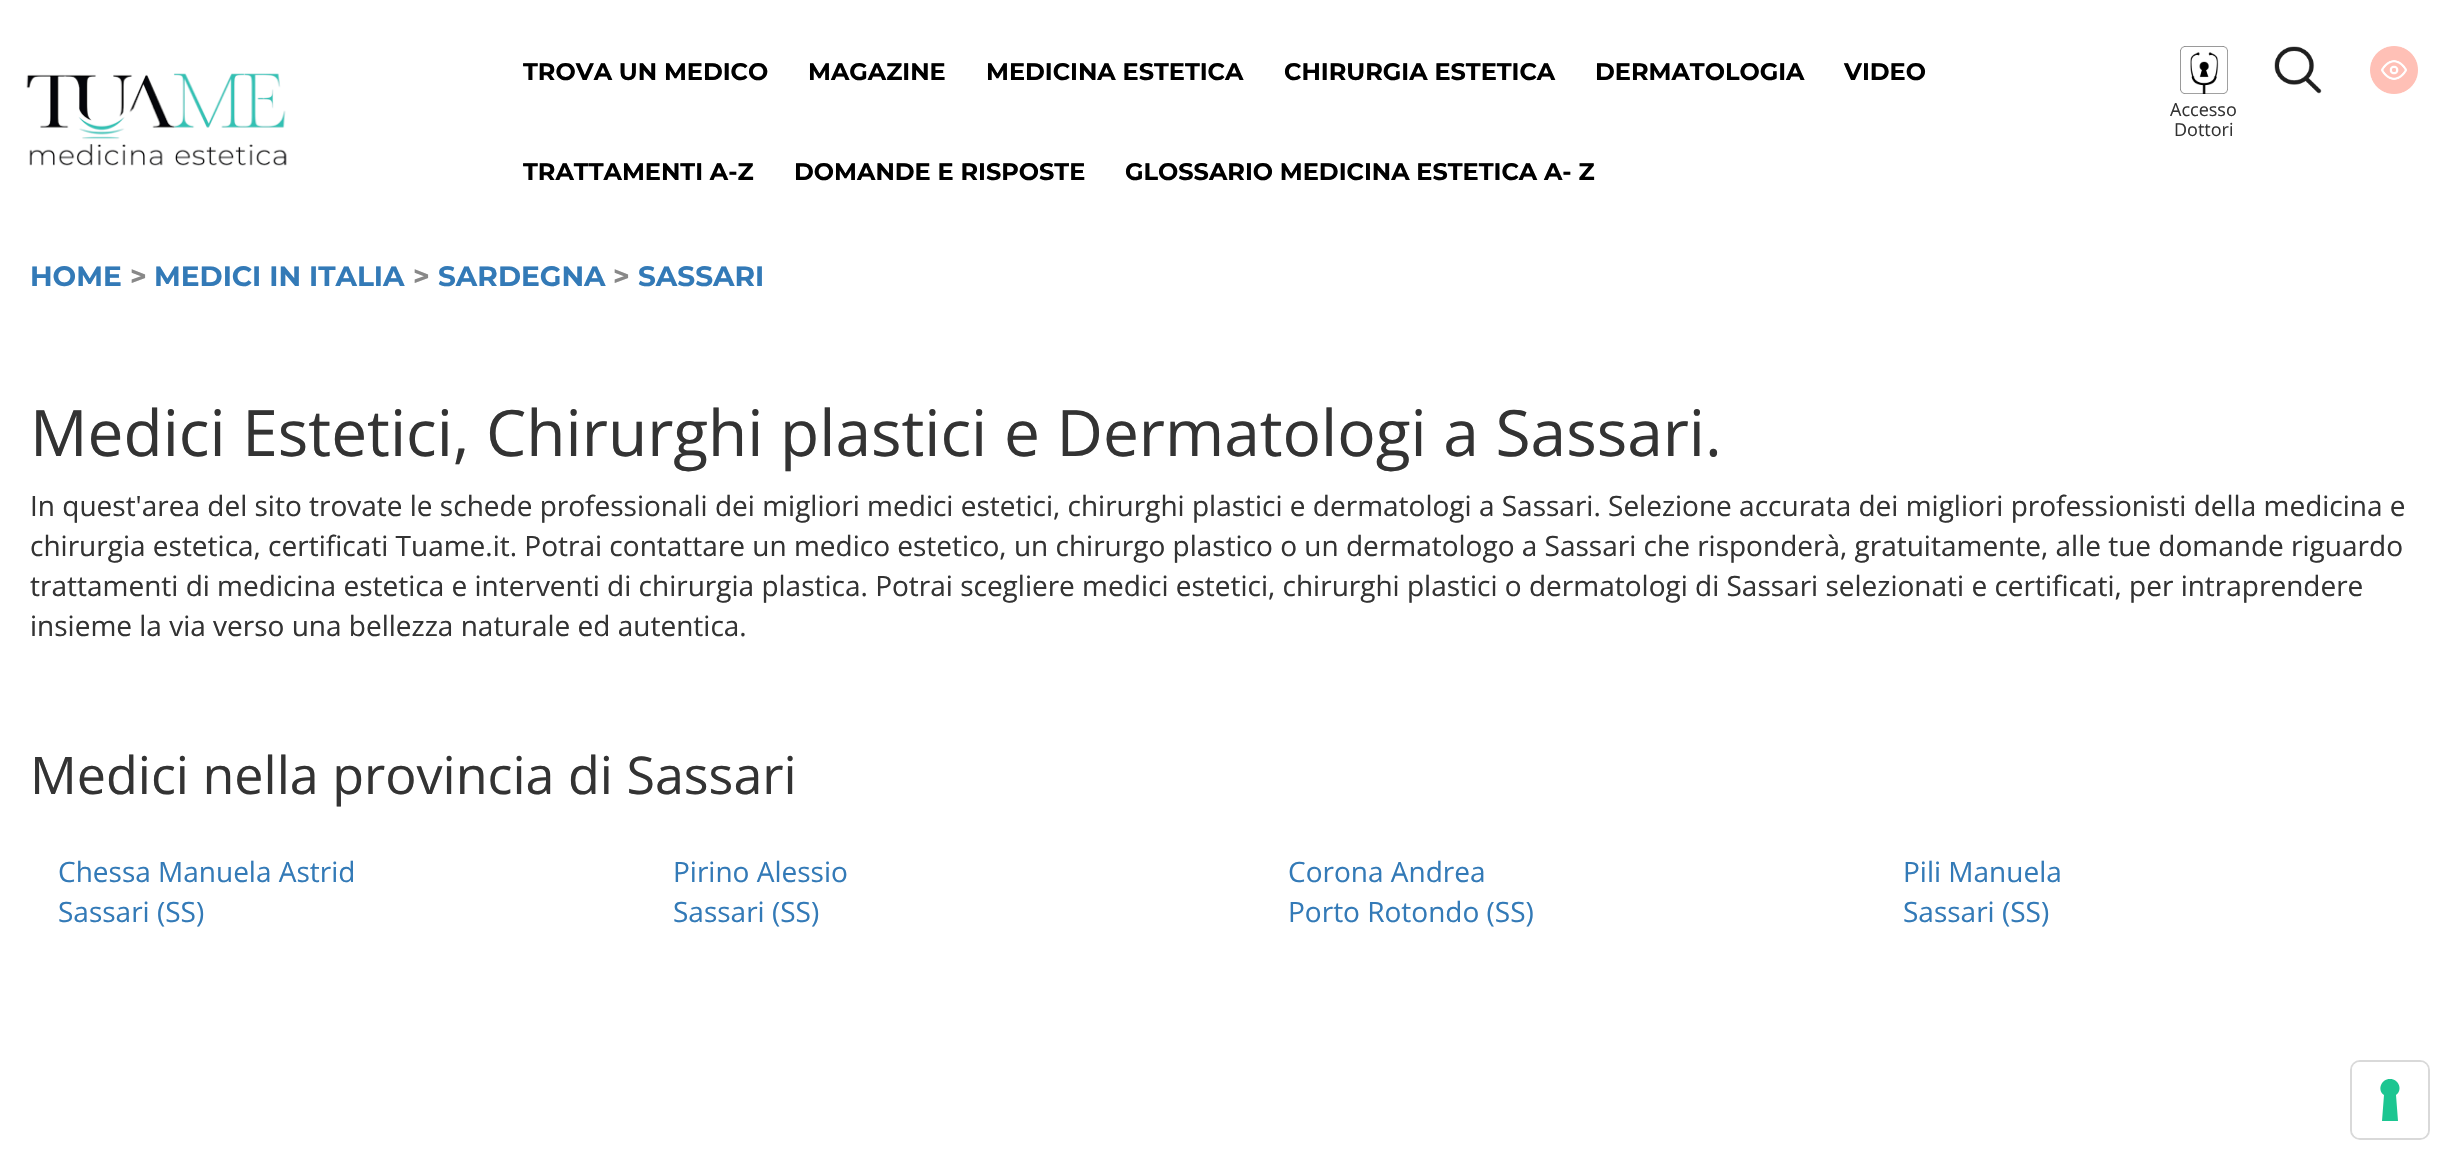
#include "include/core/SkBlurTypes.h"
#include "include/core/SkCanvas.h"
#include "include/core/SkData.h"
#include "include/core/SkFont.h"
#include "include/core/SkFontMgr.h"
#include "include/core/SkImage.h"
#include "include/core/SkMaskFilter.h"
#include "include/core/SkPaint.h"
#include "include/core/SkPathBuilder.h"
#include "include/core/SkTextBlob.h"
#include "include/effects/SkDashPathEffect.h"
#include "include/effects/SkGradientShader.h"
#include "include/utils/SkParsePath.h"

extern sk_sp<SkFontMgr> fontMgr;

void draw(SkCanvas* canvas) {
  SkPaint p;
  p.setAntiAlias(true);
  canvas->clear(SK_ColorWHITE);
  canvas->drawImageRect(SkImages::DeferredFromEncodedData(SkData::MakeFromFileName("images/1.png")), SkRect::MakeLTRB(26, 73, 287, 166), SkSamplingOptions());
  canvas->drawImageRect(SkImages::DeferredFromEncodedData(SkData::MakeFromFileName("images/2.png")), SkRect::MakeLTRB(2274, 46, 2322, 94), SkSamplingOptions());
  canvas->drawImageRect(SkImages::DeferredFromEncodedData(SkData::MakeFromFileName("images/3.png")), SkRect::MakeLTRB(2370, 46, 2418, 94), SkSamplingOptions());
  canvas->drawImageRect(SkImages::DeferredFromEncodedData(SkData::MakeFromFileName("images/4.png")), SkRect::MakeLTRB(2180, 46, 2228, 94), SkSamplingOptions());
  p.setStyle(SkPaint::kStroke_Style);
  p.setStrokeWidth(2);
  p.setColor(SkColorSetRGB(217, 217, 217));
  canvas->drawRoundRect(SkRect::MakeLTRB(2351, 1061, 2429, 1139), 9, 9, p);
  p.setStyle(SkPaint::kFill_Style);
  p.setColor(SK_ColorWHITE);
  canvas->drawRoundRect(SkRect::MakeLTRB(2352, 1062, 2428, 1138), 8, 8, p);
  p.setColor(SkColorSetRGB(28, 198, 145));
  canvas->drawPath(SkPathBuilder(SkPathFillType::kEvenOdd).moveTo(2390, 1079).cubicTo(2399, 1079, 2403, 1090, 2396, 1095).lineTo(2398, 1121).lineTo(2382, 1121).lineTo(2384, 1095).cubicTo(2377, 1090, 2381, 1079, 2390, 1079).close().detach(), p);
  SkFont font1(fontMgr->matchFamilyStyle("Montserrat", SkFontStyle::Bold()), 24);
  font1.setSubpixel(true);
  p.setColor(SK_ColorBLACK);
  canvas->drawString("TROVA UN MEDICO", 523, 80, font1, p);
  canvas->drawString("MAGAZINE", 808, 80, font1, p);
  canvas->drawString("MEDICINA ESTETICA", 986, 80, font1, p);
  canvas->drawString("CHIRURGIA ESTETICA", 1284, 80, font1, p);
  canvas->drawString("DERMATOLOGIA", 1595, 80, font1, p);
  canvas->drawString("VIDEO", 1844, 80, font1, p);
  canvas->drawString("TRATTAMENTI A-Z", 523, 180, font1, p);
  canvas->drawString("DOMANDE E RISPOSTE", 794, 180, font1, p);
  canvas->drawString("GLOSSARIO MEDICINA ESTETICA A- Z", 1125, 180, font1, p);
  SkFont font2(fontMgr->matchFamilyStyle("Open Sans", SkFontStyle::Normal()), 18);
  font2.setSubpixel(true);
  p.setColor(SkColorSetRGB(51, 51, 51));
  canvas->drawString("Accesso", 2170, 116, font2, p);
  canvas->drawString("Dottori", 2174, 136, font2, p);
  SkFont font3(fontMgr->matchFamilyStyle("Montserrat", SkFontStyle::Bold()), 28);
  font3.setSubpixel(true);
  p.setColor(SkColorSetRGB(51, 122, 183));
  canvas->drawString("HOME", 30, 286, font3, p);
  p.setColor(SkColorSetRGB(136, 136, 136));
  canvas->drawString(">", 130, 286, font3, p);
  p.setColor(SkColorSetRGB(51, 122, 183));
  canvas->drawString("MEDICI IN ITALIA", 154, 286, font3, p);
  p.setColor(SkColorSetRGB(136, 136, 136));
  canvas->drawString(">", 413, 286, font3, p);
  p.setColor(SkColorSetRGB(51, 122, 183));
  canvas->drawString("SARDEGNA", 438, 286, font3, p);
  p.setColor(SkColorSetRGB(136, 136, 136));
  canvas->drawString(">", 613, 286, font3, p);
  p.setColor(SkColorSetRGB(51, 122, 183));
  canvas->drawString("SASSARI", 638, 286, font3, p);
  SkFont font4(fontMgr->matchFamilyStyle("Open Sans", SkFontStyle::Normal()), 64);
  font4.setSubpixel(true);
  p.setColor(SkColorSetRGB(51, 51, 51));
  canvas->drawString("Medici Estetici, Chirurghi plastici e Dermatologi a Sassari.", 30, 456, font4, p);
  SkFont font5(fontMgr->matchFamilyStyle("Open Sans", SkFontStyle::Normal()), 28);
  font5.setSubpixel(true);
  canvas->drawString("In quest'area del sito trovate le schede professionali dei migliori medici estetici, chirurghi plastici e dermatologi a Sassari. Selezione accurata dei migliori professionisti della medicina e", 30, 516, font5, p);
  canvas->drawString("chirurgia estetica, certificati Tuame.it. Potrai contattare un medico estetico, un chirurgo plastico o un dermatologo a Sassari che risponderà, gratuitamente, alle tue domande riguardo", 30, 556, font5, p);
  canvas->drawString("trattamenti di medicina estetica e interventi di chirurgia plastica. Potrai scegliere medici estetici, chirurghi plastici o dermatologi di Sassari selezionati e certificati, per intraprendere", 30, 596, font5, p);
  canvas->drawString("insieme la via verso una bellezza naturale ed autentica.", 30, 636, font5, p);
  SkFont font6(fontMgr->matchFamilyStyle("Open Sans", SkFontStyle::Normal()), 52);
  font6.setSubpixel(true);
  canvas->drawString("Medici nella provincia di Sassari", 30, 794, font6, p);
  p.setColor(SkColorSetRGB(51, 122, 183));
  canvas->drawString("Chessa Manuela Astrid", 58, 882, font5, p);
  canvas->drawString("Sassari (SS)", 58, 922, font5, p);
  canvas->drawString("Pirino Alessio", 673, 882, font5, p);
  canvas->drawString("Sassari (SS)", 673, 922, font5, p);
  canvas->drawString("Corona Andrea", 1288, 882, font5, p);
  canvas->drawString("Porto Rotondo (SS)", 1288, 922, font5, p);
  canvas->drawString("Pili Manuela", 1903, 882, font5, p);
  canvas->drawString("Sassari (SS)", 1903, 922, font5, p);
}
